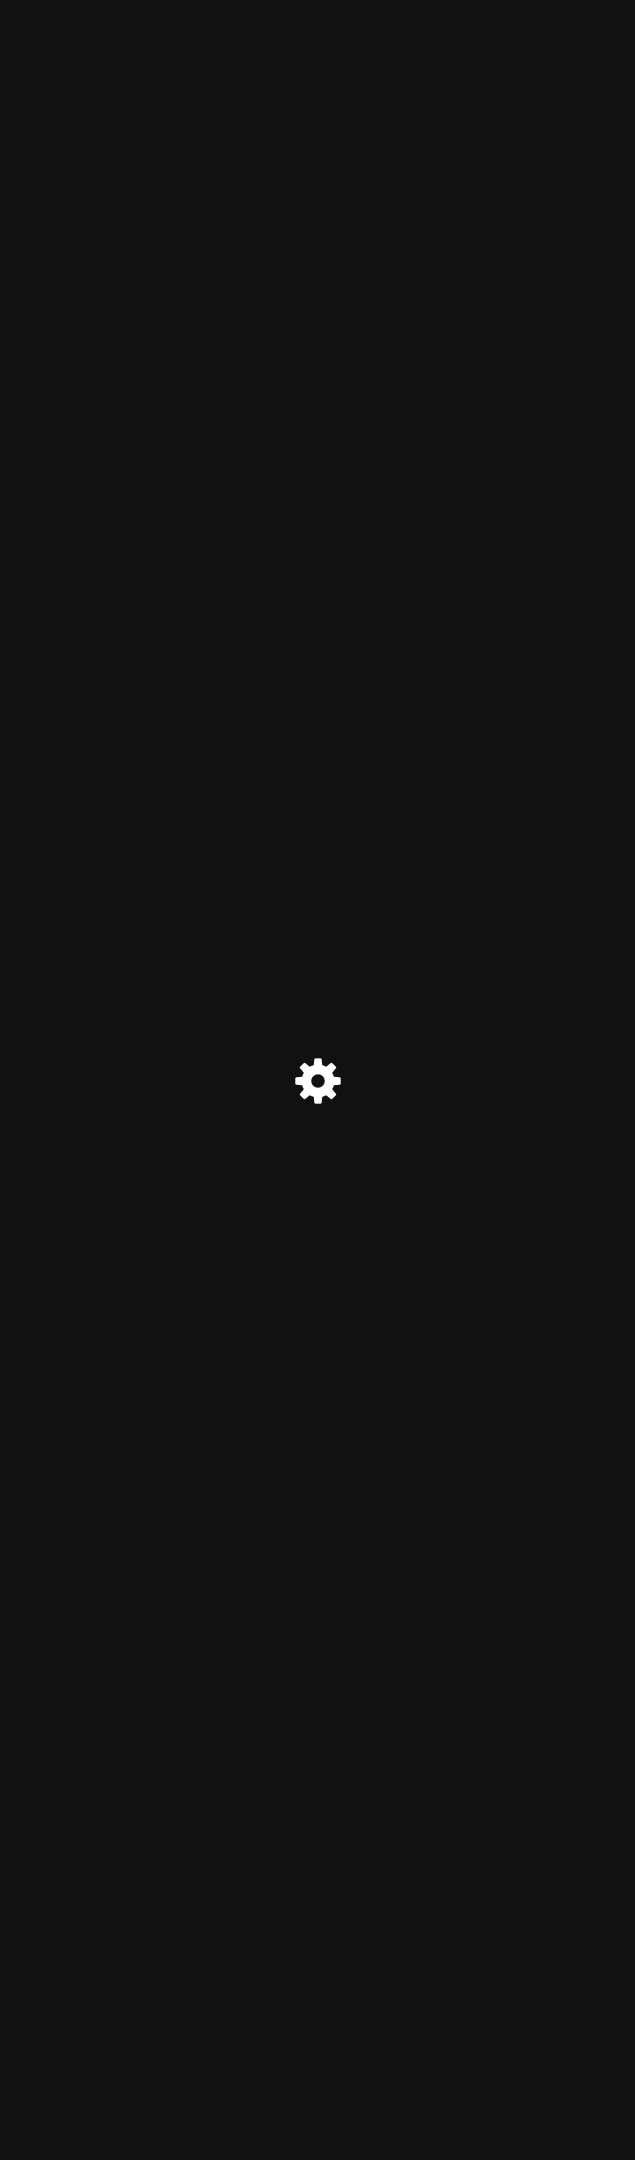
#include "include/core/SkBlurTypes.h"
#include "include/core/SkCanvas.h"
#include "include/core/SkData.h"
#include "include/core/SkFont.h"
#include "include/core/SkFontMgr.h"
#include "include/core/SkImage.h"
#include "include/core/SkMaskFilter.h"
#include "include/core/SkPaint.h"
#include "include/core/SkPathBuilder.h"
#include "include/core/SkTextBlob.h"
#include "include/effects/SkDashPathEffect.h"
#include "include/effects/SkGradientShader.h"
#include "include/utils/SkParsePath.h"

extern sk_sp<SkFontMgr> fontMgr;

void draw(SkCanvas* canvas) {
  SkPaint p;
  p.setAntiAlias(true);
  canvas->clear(SkColorSetRGB(17, 17, 17));
  canvas->drawImageRect(SkImages::DeferredFromEncodedData(SkData::MakeFromFileName("images/1.png")), SkRect::MakeLTRB(295, 1058, 341, 1104), SkSamplingOptions());
}
